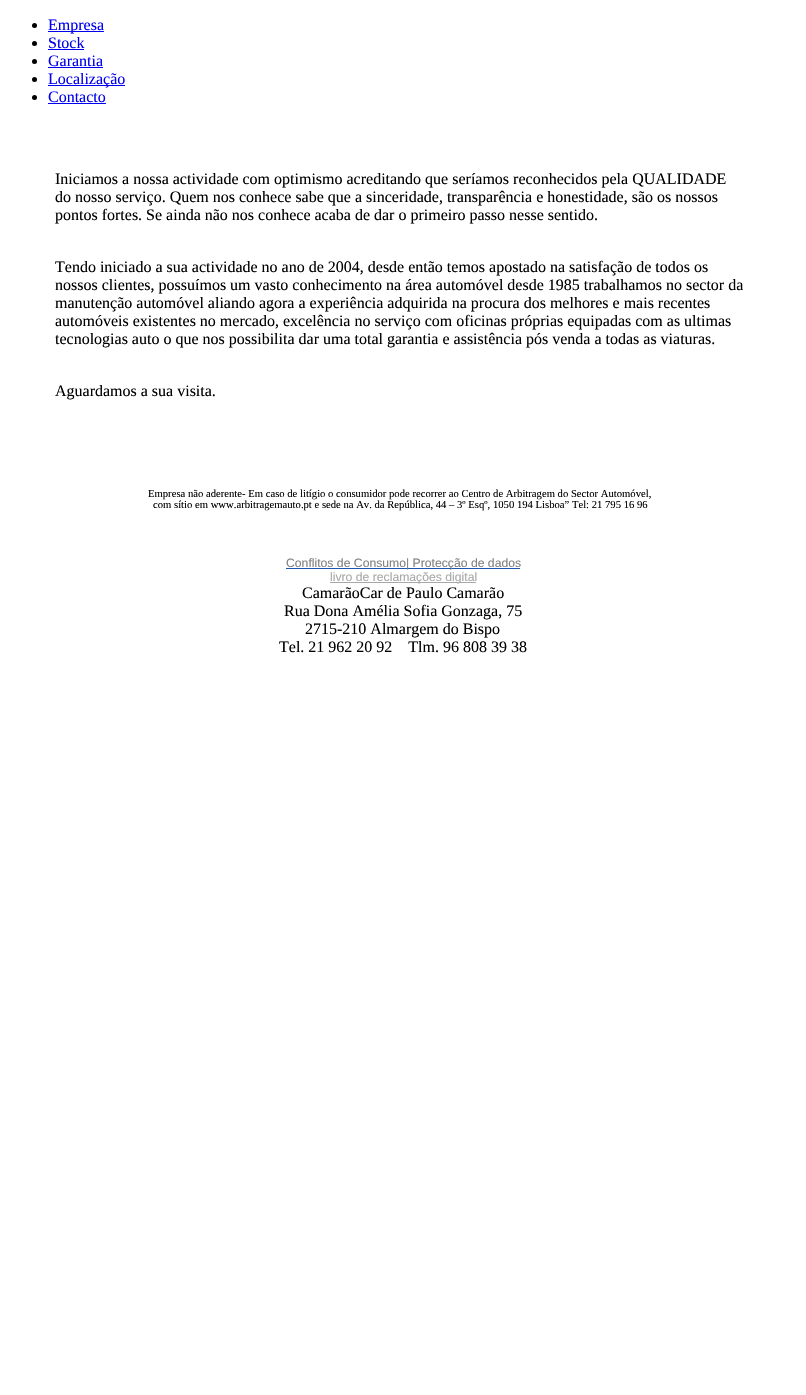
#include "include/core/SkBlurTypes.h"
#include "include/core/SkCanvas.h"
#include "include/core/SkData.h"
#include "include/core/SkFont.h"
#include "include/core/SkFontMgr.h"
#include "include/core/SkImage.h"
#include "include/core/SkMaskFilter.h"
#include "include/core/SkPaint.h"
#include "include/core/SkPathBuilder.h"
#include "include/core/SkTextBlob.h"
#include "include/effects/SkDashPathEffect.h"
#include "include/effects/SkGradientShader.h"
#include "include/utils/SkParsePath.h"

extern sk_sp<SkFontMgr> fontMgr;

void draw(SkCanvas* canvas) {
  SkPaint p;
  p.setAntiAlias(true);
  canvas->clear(SK_ColorWHITE);
  p.setColor(SK_ColorBLACK);
  canvas->drawCircle(34.5f, 25.5f, 2.5f, p);
  p.setColor(SkColorSetRGB(0, 0, 238));
  canvas->drawRect(SkRect::MakeLTRB(48, 31, 104, 32), p);
  p.setColor(SK_ColorBLACK);
  canvas->drawCircle(34.5f, 43.5f, 2.5f, p);
  p.setColor(SkColorSetRGB(0, 0, 238));
  canvas->drawRect(SkRect::MakeLTRB(48, 49, 84, 50), p);
  p.setColor(SK_ColorBLACK);
  canvas->drawCircle(34.5f, 61.5f, 2.5f, p);
  p.setColor(SkColorSetRGB(0, 0, 238));
  canvas->drawRect(SkRect::MakeLTRB(48, 67, 103, 68), p);
  p.setColor(SK_ColorBLACK);
  canvas->drawCircle(34.5f, 79.5f, 2.5f, p);
  p.setColor(SkColorSetRGB(0, 0, 238));
  canvas->drawRect(SkRect::MakeLTRB(48, 85, 125, 86), p);
  p.setColor(SK_ColorBLACK);
  canvas->drawCircle(34.5f, 97.5f, 2.5f, p);
  p.setColor(SkColorSetRGB(0, 0, 238));
  canvas->drawRect(SkRect::MakeLTRB(48, 103, 106, 104), p);
  p.setColor(SkColorSetRGB(27, 87, 177));
  canvas->drawRect(SkRect::MakeLTRB(286, 568, 520, 569), p);
  p.setColor(SkColorSetRGB(168, 168, 168));
  canvas->drawRect(SkRect::MakeLTRB(330, 582, 476, 583), p);
  SkFont font1(fontMgr->matchFamilyStyle("Liberation Serif", SkFontStyle::Normal()), 16);
  font1.setSubpixel(true);
  p.setColor(SkColorSetRGB(0, 0, 238));
  canvas->drawString("Empresa", 48, 30, font1, p);
  canvas->drawString("Stock", 48, 48, font1, p);
  canvas->drawString("Garantia", 48, 66, font1, p);
  canvas->drawString("Localização", 48, 84, font1, p);
  canvas->drawString("Contacto", 48, 102, font1, p);
  p.setColor(SK_ColorBLACK);
  canvas->drawString("Iniciamos a nossa actividade com optimismo acreditando que seríamos reconhecidos pela QUALIDADE", 55, 184, font1, p);
  canvas->drawString("do nosso serviço. Quem nos conhece sabe que a sinceridade, transparência e honestidade, são os nossos", 55, 202, font1, p);
  canvas->drawString("pontos fortes. Se ainda não nos conhece acaba de dar o primeiro passo nesse sentido.", 55, 220, font1, p);
  canvas->drawString("Tendo iniciado a sua actividade no ano de 2004, desde então temos apostado na satisfação de todos os", 55, 272, font1, p);
  canvas->drawString("nossos clientes, possuímos um vasto conhecimento na área automóvel desde 1985 trabalhamos no sector da", 55, 290, font1, p);
  canvas->drawString("manutenção automóvel aliando agora a experiência adquirida na procura dos melhores e mais recentes", 55, 308, font1, p);
  canvas->drawString("automóveis existentes no mercado, excelência no serviço com oficinas próprias equipadas com as ultimas", 55, 326, font1, p);
  canvas->drawString("tecnologias auto o que nos possibilita dar uma total garantia e assistência pós venda a todas as viaturas.", 55, 344, font1, p);
  canvas->drawString("Aguardamos a sua visita.", 55, 396, font1, p);
  SkFont font2(fontMgr->matchFamilyStyle("Liberation Serif", SkFontStyle::Normal()), 10.65f);
  font2.setSubpixel(true);
  canvas->drawString("Empresa não aderente- Em caso de litígio o consumidor pode recorrer ao Centro de Arbitragem do Sector Automóvel,", 148, 497, font2, p);
  canvas->drawString("com sítio em www.arbitragemauto.pt e sede na Av. da República, 44 – 3º Esqº, 1050 194 Lisboa” Tel: 21 795 16 96", 153, 508, font2, p);
  SkFont font3(fontMgr->matchFamilyStyle("Liberation Sans", SkFontStyle::Normal()), 12.2f);
  font3.setSubpixel(true);
  p.setColor(SkColorSetRGB(128, 128, 128));
  canvas->drawString("Conflitos de Consumo| Protecção de dados", 286, 567, font3, p);
  p.setColor(SkColorSetRGB(168, 168, 168));
  canvas->drawString("livro de reclamações digital", 330, 581, font3, p);
  p.setColor(SK_ColorBLACK);
  canvas->drawString("CamarãoCar de Paulo Camarão", 302, 598, font1, p);
  canvas->drawString("Rua Dona Amélia Sofia Gonzaga, 75", 284, 616, font1, p);
  canvas->drawString("2715-210 Almargem do Bispo", 305, 634, font1, p);
  canvas->drawString("Tel. 21 962 20 92    Tlm. 96 808 39 38", 279, 652, font1, p);
}
